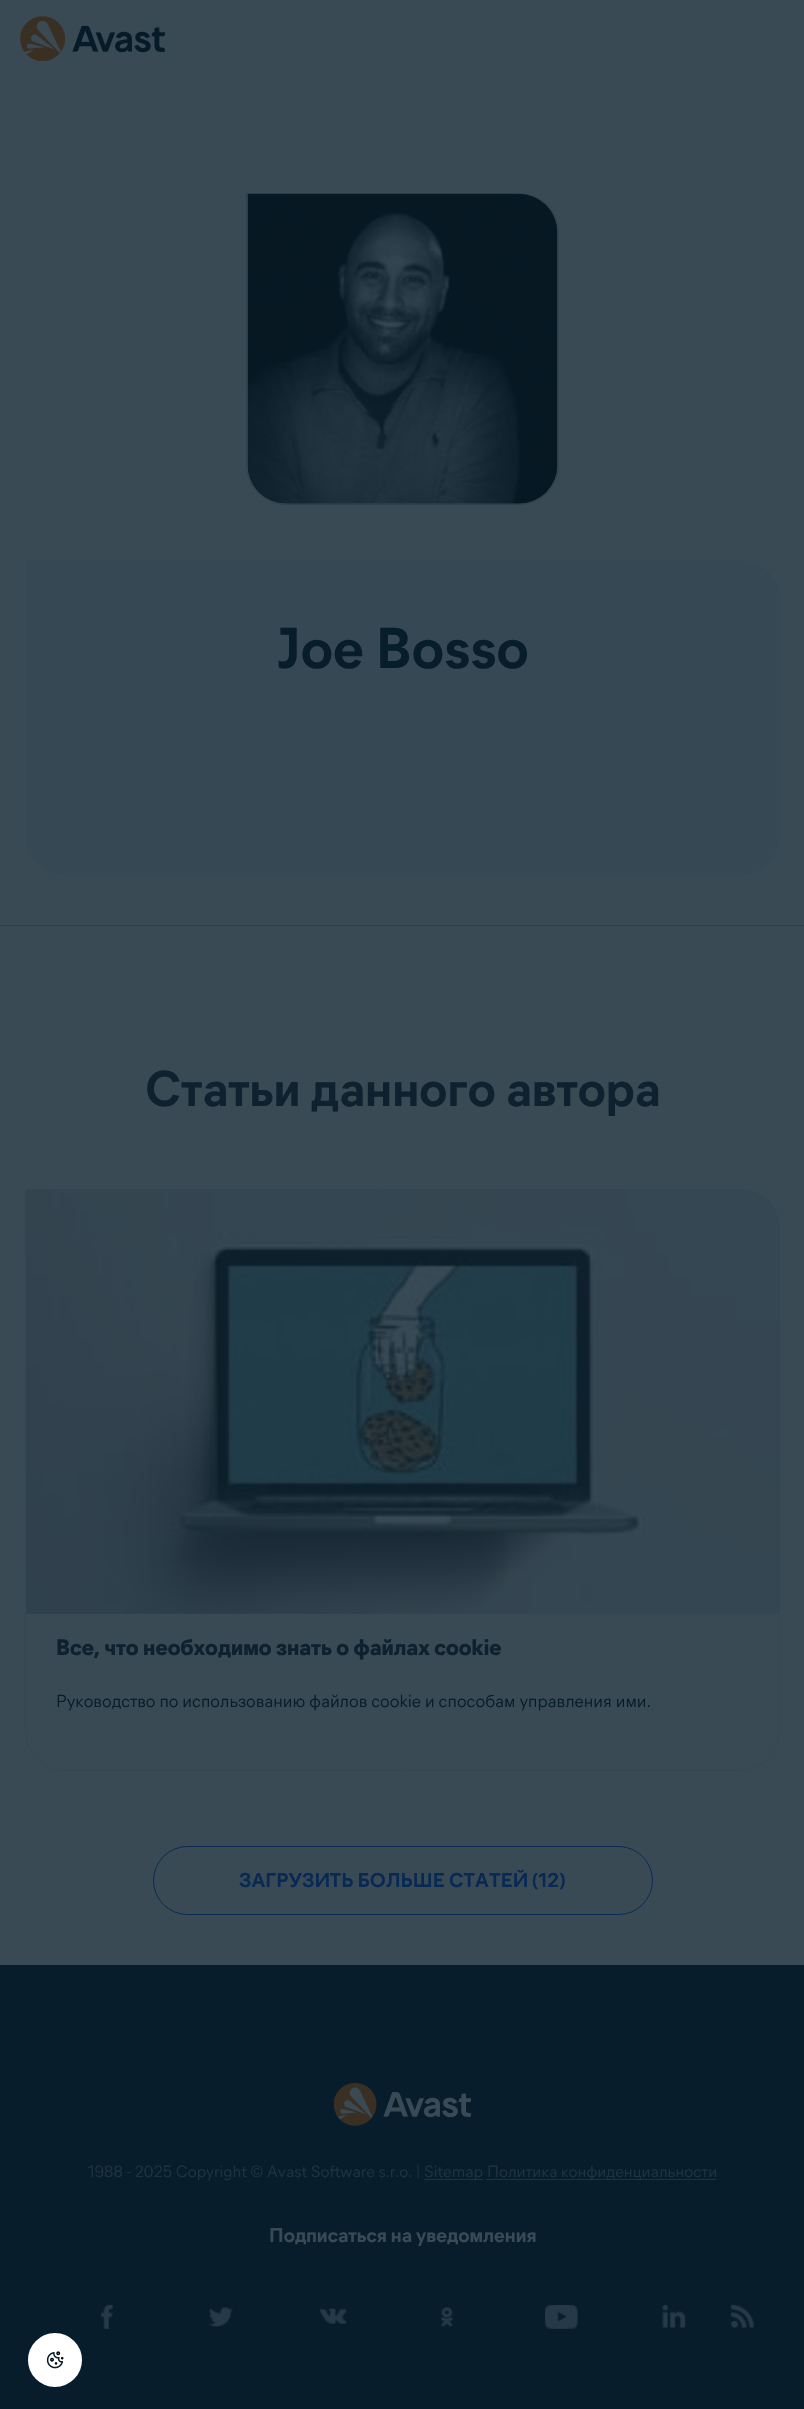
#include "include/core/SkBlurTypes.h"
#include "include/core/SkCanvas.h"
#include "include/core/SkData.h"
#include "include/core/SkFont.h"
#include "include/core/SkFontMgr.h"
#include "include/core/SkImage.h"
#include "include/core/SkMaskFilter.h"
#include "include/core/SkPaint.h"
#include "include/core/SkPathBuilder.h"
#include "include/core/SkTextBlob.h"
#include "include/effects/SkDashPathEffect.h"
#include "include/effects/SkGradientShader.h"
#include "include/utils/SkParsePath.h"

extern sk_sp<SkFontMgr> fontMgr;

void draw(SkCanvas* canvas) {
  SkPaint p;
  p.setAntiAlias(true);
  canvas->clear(SkColorSetRGB(57, 74, 85));
  canvas->drawImageRect(SkImages::DeferredFromEncodedData(SkData::MakeFromFileName("images/1.png")), SkRect::MakeLTRB(20, 16, 165, 61), SkSamplingOptions());
  p.setStyle(SkPaint::kStroke_Style);
  p.setStrokeWidth(1);
  p.setColor(SkColorSetRGB(47, 65, 76));
  canvas->drawPath(SkPathBuilder().moveTo(246.5f, 193.5f).lineTo(519, 193.5f).cubicTo(541, 193.5f, 558.5f, 211, 558.5f, 233).lineTo(558.5f, 465).cubicTo(558.5f, 487, 541, 504.5f, 519, 504.5f).lineTo(286, 504.5f).cubicTo(264, 504.5f, 246.5f, 487, 246.5f, 465).close().detach(), p);
  canvas->drawImageRect(SkImages::DeferredFromEncodedData(SkData::MakeFromFileName("images/2.png")), SkRect::MakeLTRB(247, 193, 558, 504), SkSamplingOptions());
  p.setStyle(SkPaint::kFill_Style);
  p.setColor(SkColorSetRGB(54, 72, 83));
  canvas->drawPath(SkPathBuilder().moveTo(25, 560).lineTo(740, 560).cubicTo(762, 560, 780, 578, 780, 600).lineTo(780, 835).cubicTo(780, 857, 762, 875, 740, 875).lineTo(65, 875).cubicTo(43, 875, 25, 857, 25, 835).close().detach(), p);
  p.setColor(SkColorSetRGB(44, 62, 73));
  canvas->drawRect(SkRect::MakeLTRB(0, 925, 804, 926), p);
  p.setStyle(SkPaint::kStroke_Style);
  p.setColor(SkColorSetRGB(51, 70, 81));
  canvas->drawPath(SkPathBuilder().moveTo(25.5f, 1189.5f).lineTo(740, 1189.5f).cubicTo(762, 1189.5f, 779.5f, 1207, 779.5f, 1229).lineTo(779.5f, 1731).cubicTo(779.5f, 1753, 762, 1770.5f, 740, 1770.5f).lineTo(65, 1770.5f).cubicTo(43, 1770.5f, 25.5f, 1753, 25.5f, 1731).close().detach(), p);
  p.setStyle(SkPaint::kFill_Style);
  p.setColor(SkColorSetRGB(50, 67, 79));
  canvas->drawPath(SkPathBuilder().moveTo(26, 1190).lineTo(740, 1190).cubicTo(761.5f, 1190, 779, 1207.5f, 779, 1229).lineTo(779, 1614).lineTo(26, 1614).close().detach(), p);
  canvas->drawImageRect(SkImages::DeferredFromEncodedData(SkData::MakeFromFileName("images/3.png")), SkRect::MakeLTRB(26, 1190, 779, 1614), SkSamplingOptions());
  p.setStyle(SkPaint::kStroke_Style);
  p.setColor(SkColorSetRGB(7, 41, 84));
  canvas->drawRoundRect(SkRect::MakeLTRB(153.5f, 1846.5f, 652.5f, 1914.5f), 34, 34, p);
  p.setStyle(SkPaint::kFill_Style);
  p.setColor(SkColorSetRGB(7, 29, 43));
  canvas->drawRect(SkRect::MakeLTRB(0, 1965, 804, 2409), p);
  canvas->drawImageRect(SkImages::DeferredFromEncodedData(SkData::MakeFromFileName("images/4.png")), SkRect::MakeLTRB(334, 2083, 471, 2126), SkSamplingOptions());
  p.setColor(SkColorSetRGB(30, 50, 67));
  canvas->drawRect(SkRect::MakeLTRB(424, 2179, 483, 2180), p);
  canvas->drawRect(SkRect::MakeLTRB(486, 2179, 716, 2180), p);
  canvas->drawImageRect(SkImages::DeferredFromEncodedData(SkData::MakeFromFileName("images/5.png")), SkRect::MakeLTRB(101, 2305, 113, 2329), SkSamplingOptions());
  canvas->drawImageRect(SkImages::DeferredFromEncodedData(SkData::MakeFromFileName("images/6.png")), SkRect::MakeLTRB(208, 2307, 233, 2327), SkSamplingOptions());
  canvas->drawImageRect(SkImages::DeferredFromEncodedData(SkData::MakeFromFileName("images/7.png")), SkRect::MakeLTRB(320, 2308, 347, 2324), SkSamplingOptions());
  canvas->drawImageRect(SkImages::DeferredFromEncodedData(SkData::MakeFromFileName("images/8.png")), SkRect::MakeLTRB(441, 2307, 453, 2327), SkSamplingOptions());
  canvas->drawImageRect(SkImages::DeferredFromEncodedData(SkData::MakeFromFileName("images/9.png")), SkRect::MakeLTRB(545, 2305, 578, 2329), SkSamplingOptions());
  canvas->drawImageRect(SkImages::DeferredFromEncodedData(SkData::MakeFromFileName("images/10.png")), SkRect::MakeLTRB(662, 2305, 686, 2328), SkSamplingOptions());
  canvas->drawImageRect(SkImages::DeferredFromEncodedData(SkData::MakeFromFileName("images/11.png")), SkRect::MakeLTRB(731, 2305, 754, 2328), SkSamplingOptions());
  p.setColor(SK_ColorWHITE);
  canvas->drawCircle(55, 2360, 28.5f, p);
  p.setStyle(SkPaint::kStroke_Style);
  p.setStrokeWidth(3);
  p.setColor(SkColorSetRGB(7, 29, 43));
  canvas->drawCircle(55, 2360, 28.5f, p);
  canvas->drawImageRect(SkImages::DeferredFromEncodedData(SkData::MakeFromFileName("images/12.png")), SkRect::MakeLTRB(46, 2351, 64, 2369), SkSamplingOptions());
  SkFont font1(fontMgr->matchFamilyStyle("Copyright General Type", SkFontStyle::Bold()), 57.5f);
  font1.setSubpixel(true);
  p.setStyle(SkPaint::kFill_Style);
  p.setColor(SkColorSetRGB(8, 29, 42));
  canvas->drawString("Joe Bosso", 277, 668, font1, p);
  SkFont font2(fontMgr->matchFamilyStyle("Copyright General Type", SkFontStyle::Bold()), 50);
  font2.setSubpixel(true);
  p.setColor(SkColorSetRGB(15, 33, 47));
  canvas->drawString("Статьи данного автора", 145, 1106, font2, p);
  SkFont font3(fontMgr->matchFamilyStyle("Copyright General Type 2", SkFontStyle::Bold()), 22.5f);
  font3.setSubpixel(true);
  canvas->drawString("Все, что необходимо знать о файлах cookie", 56, 1655, font3, p);
  SkFont font4(fontMgr->matchFamilyStyle("Copyright General Type", SkFontStyle::Normal()), 17.5f);
  font4.setSubpixel(true);
  p.setColor(SkColorSetRGB(8, 29, 42));
  canvas->drawString("Руководство по использованию файлов cookie и способам управления ими.", 56, 1707, font4, p);
  SkFont font5(fontMgr->matchFamilyStyle("Copyright General Type", SkFontStyle::Bold()), 20);
  font5.setSubpixel(true);
  p.setColor(SkColorSetRGB(7, 41, 84));
  canvas->drawString("ЗАГРУЗИТЬ БОЛЬШЕ СТАТЕЙ (12)", 239, 1887, font5, p);
  SkFont font6(fontMgr->matchFamilyStyle("Copyright General Type", SkFontStyle::Normal()), 16.25f);
  font6.setSubpixel(true);
  p.setColor(SkColorSetRGB(30, 50, 67));
  canvas->drawString("1988 - 2025 Copyright © Avast Software s.r.o. |", 88, 2177, font6, p);
  canvas->drawString("Sitemap", 424, 2177, font6, p);
  canvas->drawString("Политика конфиденциальности", 487, 2177, font6, p);
  p.setColor(SkColorSetRGB(57, 74, 85));
  canvas->drawString("Подписаться на уведомления", 269, 2242, font5, p);
}
